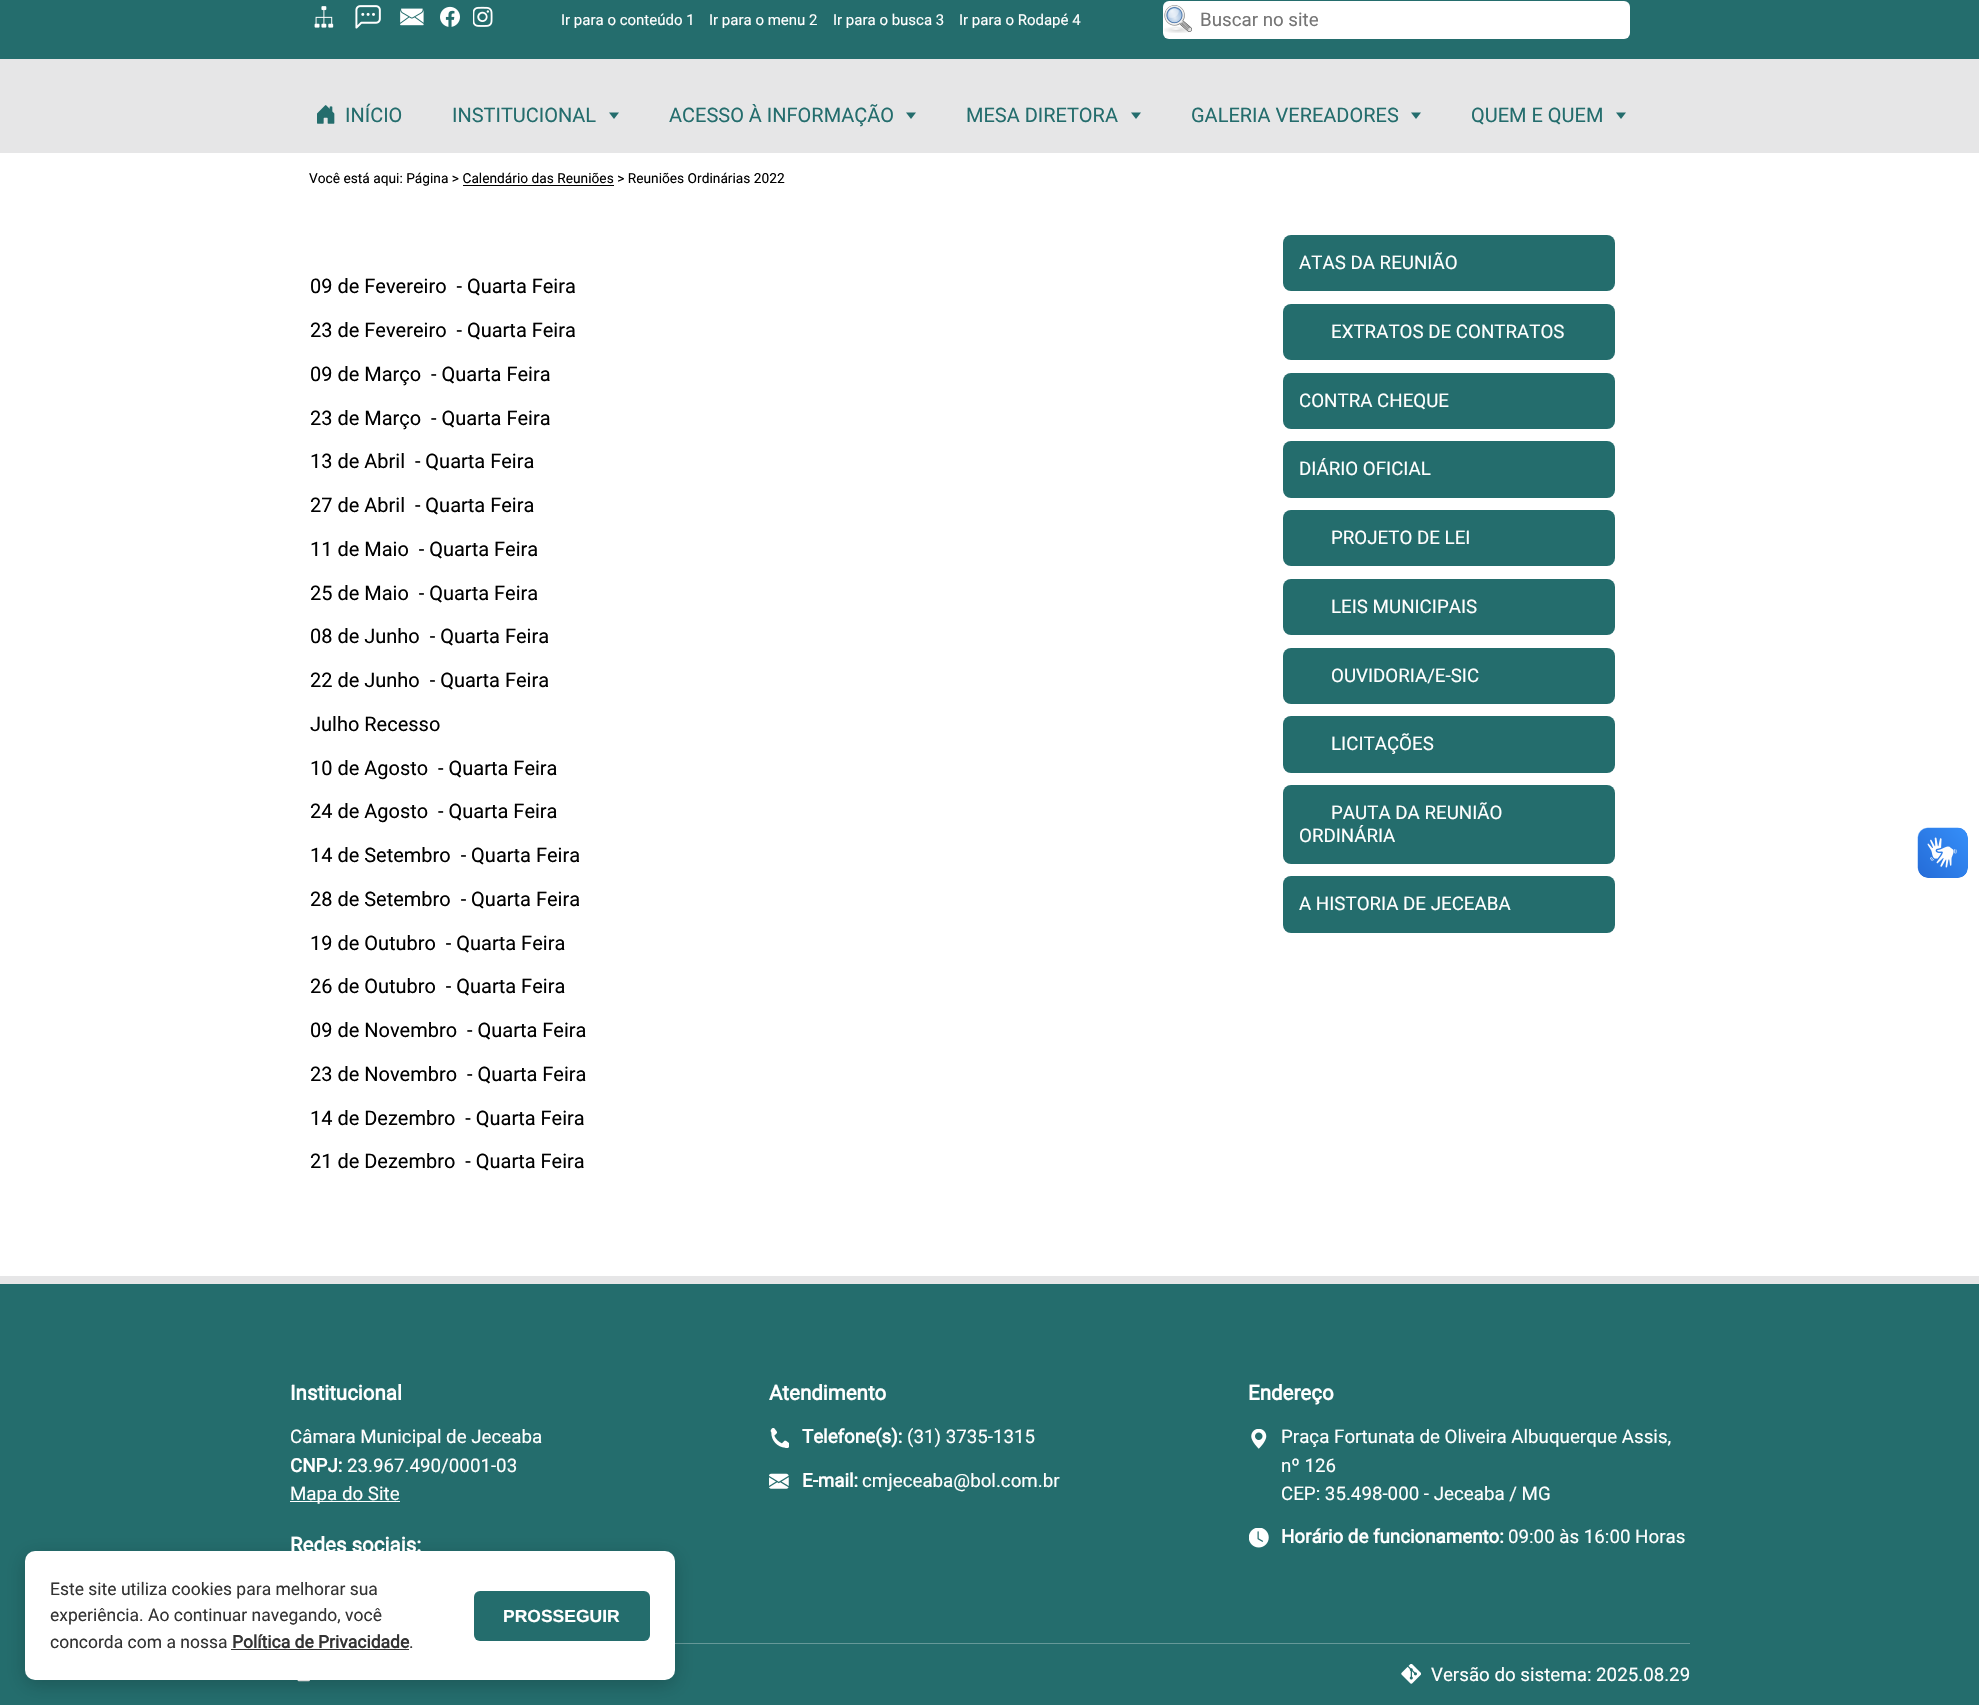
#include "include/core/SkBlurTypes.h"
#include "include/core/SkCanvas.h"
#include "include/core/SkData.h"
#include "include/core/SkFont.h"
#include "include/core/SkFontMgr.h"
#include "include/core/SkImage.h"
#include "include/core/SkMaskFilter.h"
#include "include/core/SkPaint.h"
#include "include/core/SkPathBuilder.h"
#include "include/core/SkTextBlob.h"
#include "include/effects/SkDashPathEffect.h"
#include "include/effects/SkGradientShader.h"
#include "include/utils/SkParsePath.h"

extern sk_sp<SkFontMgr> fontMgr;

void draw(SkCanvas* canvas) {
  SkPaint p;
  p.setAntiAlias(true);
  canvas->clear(SK_ColorWHITE);
  p.setColor(SkColorSetRGB(36, 109, 109));
  canvas->drawRect(SkRect::MakeLTRB(0, 0, 1979, 59), p);
  canvas->drawImageRect(SkImages::DeferredFromEncodedData(SkData::MakeFromFileName("images/1.png")), SkRect::MakeLTRB(314, 6, 334, 28), SkSamplingOptions());
  canvas->drawImageRect(SkImages::DeferredFromEncodedData(SkData::MakeFromFileName("images/2.png")), SkRect::MakeLTRB(355, 5, 381, 29), SkSamplingOptions());
  canvas->drawImageRect(SkImages::DeferredFromEncodedData(SkData::MakeFromFileName("images/3.png")), SkRect::MakeLTRB(400, 8, 424, 26), SkSamplingOptions());
  canvas->drawImageRect(SkImages::DeferredFromEncodedData(SkData::MakeFromFileName("images/4.png")), SkRect::MakeLTRB(440, 6, 460, 27), SkSamplingOptions());
  canvas->drawImageRect(SkImages::DeferredFromEncodedData(SkData::MakeFromFileName("images/5.png")), SkRect::MakeLTRB(473, 6, 493, 27), SkSamplingOptions());
  p.setColor(SK_ColorWHITE);
  canvas->drawRoundRect(SkRect::MakeLTRB(1163, 1, 1630, 39), 6, 6, p);
  canvas->drawImageRect(SkImages::DeferredFromEncodedData(SkData::MakeFromFileName("images/6.png")), SkRect::MakeLTRB(1164, 5, 1192, 33), SkSamplingOptions());
  p.setColor(SkColorSetRGB(230, 230, 231));
  canvas->drawRect(SkRect::MakeLTRB(0, 59, 1979, 153), p);
  canvas->drawImageRect(SkImages::DeferredFromEncodedData(SkData::MakeFromFileName("images/7.png")), SkRect::MakeLTRB(317, 105, 335, 124), SkSamplingOptions());
  p.setColor(SkColorSetRGB(36, 109, 109));
  canvas->drawPath(SkPathBuilder().moveTo(609, 112.5f).lineTo(619, 112.5f).lineTo(614, 119).close().detach(), p);
  canvas->drawPath(SkPathBuilder().moveTo(906, 112.5f).lineTo(916, 112.5f).lineTo(911, 119).close().detach(), p);
  canvas->drawPath(SkPathBuilder().moveTo(1131, 112.5f).lineTo(1141, 112.5f).lineTo(1136, 119).close().detach(), p);
  canvas->drawPath(SkPathBuilder().moveTo(1411, 112.5f).lineTo(1421, 112.5f).lineTo(1416, 119).close().detach(), p);
  canvas->drawPath(SkPathBuilder().moveTo(1616, 112.5f).lineTo(1626, 112.5f).lineTo(1621, 119).close().detach(), p);
  p.setColor(SK_ColorBLACK);
  canvas->drawRect(SkRect::MakeLTRB(463, 185, 614, 186), p);
  p.setColor(SkColorSetRGB(36, 109, 109));
  canvas->drawRoundRect(SkRect::MakeLTRB(1283, 235, 1615, 291), 8, 8, p);
  canvas->drawRoundRect(SkRect::MakeLTRB(1283, 304, 1615, 360), 8, 8, p);
  canvas->drawRoundRect(SkRect::MakeLTRB(1283, 373, 1615, 429), 8, 8, p);
  canvas->drawRoundRect(SkRect::MakeLTRB(1283, 441, 1615, 498), 8, 8, p);
  canvas->drawRoundRect(SkRect::MakeLTRB(1283, 510, 1615, 566), 8, 8, p);
  canvas->drawRoundRect(SkRect::MakeLTRB(1283, 579, 1615, 635), 8, 8, p);
  canvas->drawRoundRect(SkRect::MakeLTRB(1283, 648, 1615, 704), 8, 8, p);
  canvas->drawRoundRect(SkRect::MakeLTRB(1283, 716, 1615, 773), 8, 8, p);
  canvas->drawRoundRect(SkRect::MakeLTRB(1283, 785, 1615, 864), 8, 8, p);
  canvas->drawRoundRect(SkRect::MakeLTRB(1283, 876, 1615, 933), 8, 8, p);
  canvas->drawRect(SkRect::MakeLTRB(0, 1284, 1979, 1705), p);
  p.setColor(SkColorSetRGB(230, 230, 231));
  canvas->drawRect(SkRect::MakeLTRB(0, 1276, 1979, 1284), p);
  p.setColor(SK_ColorWHITE);
  canvas->drawRect(SkRect::MakeLTRB(290, 1501, 400, 1502), p);
  canvas->drawImageRect(SkImages::DeferredFromEncodedData(SkData::MakeFromFileName("images/8.png")), SkRect::MakeLTRB(770, 1428, 789, 1448), SkSamplingOptions());
  canvas->drawImageRect(SkImages::DeferredFromEncodedData(SkData::MakeFromFileName("images/9.png")), SkRect::MakeLTRB(769, 1473, 789, 1489), SkSamplingOptions());
  canvas->drawImageRect(SkImages::DeferredFromEncodedData(SkData::MakeFromFileName("images/10.png")), SkRect::MakeLTRB(1251, 1429, 1267, 1449), SkSamplingOptions());
  canvas->drawImageRect(SkImages::DeferredFromEncodedData(SkData::MakeFromFileName("images/11.png")), SkRect::MakeLTRB(1249, 1528, 1269, 1548), SkSamplingOptions());
  p.setColor(SkColorSetRGB(102, 153, 153));
  canvas->drawRect(SkRect::MakeLTRB(675, 1643, 1690, 1644), p);
  canvas->drawImageRect(SkImages::DeferredFromEncodedData(SkData::MakeFromFileName("images/12.png")), SkRect::MakeLTRB(297, 1680, 310, 1682), SkSamplingOptions());
  canvas->drawImageRect(SkImages::DeferredFromEncodedData(SkData::MakeFromFileName("images/13.png")), SkRect::MakeLTRB(1401, 1664, 1421, 1684), SkSamplingOptions());
  canvas->drawImageRect(SkImages::DeferredFromEncodedData(SkData::MakeFromFileName("images/14.png")), SkRect::MakeLTRB(1917, 827, 1968, 878), SkSamplingOptions());
  canvas->drawImageRect(SkImages::DeferredFromEncodedData(SkData::MakeFromFileName("images/15.png")), SkRect::MakeLTRB(1918, 828, 1968, 878), SkSamplingOptions());
  p.setColor(SkColorSetARGB(51, 0, 0, 0));
  p.setMaskFilter(SkMaskFilter::MakeBlur(kNormal_SkBlurStyle, 9.5f));
  canvas->drawRoundRect(SkRect::MakeLTRB(25, 1556, 675, 1685), 10, 10, p);
  p.setMaskFilter(nullptr);
  p.setColor(SK_ColorWHITE);
  canvas->drawRoundRect(SkRect::MakeLTRB(25, 1551, 675, 1680), 10, 10, p);
  p.setColor(SkColorSetRGB(51, 51, 51));
  canvas->drawRect(SkRect::MakeLTRB(231, 1649, 409, 1650), p);
  p.setColor(SkColorSetRGB(36, 109, 109));
  canvas->drawRoundRect(SkRect::MakeLTRB(474, 1591, 650, 1641), 6, 6, p);
  SkFont font1(fontMgr->matchFamilyStyle("Roboto", SkFontStyle::Normal()), 15);
  font1.setSubpixel(true);
  p.setColor(SK_ColorWHITE);
  canvas->drawString("Ir para o conteúdo 1", 561, 25, font1, p);
  canvas->drawString("Ir para o menu 2", 709, 25, font1, p);
  canvas->drawString("Ir para o busca 3", 833, 25, font1, p);
  canvas->drawString("Ir para o Rodapé 4", 959, 25, font1, p);
  SkFont font2(fontMgr->matchFamilyStyle("Roboto", SkFontStyle::Normal()), 18.75f);
  font2.setSubpixel(true);
  p.setColor(SkColorSetRGB(117, 117, 117));
  canvas->drawString("Buscar no site", 1200, 26, font2, p);
  SkFont font3(fontMgr->matchFamilyStyle("Roboto", SkFontStyle::Normal()), 20);
  font3.setSubpixel(true);
  p.setColor(SkColorSetRGB(36, 109, 109));
  canvas->drawString("INÍCIO", 345, 122, font3, p);
  canvas->drawString("INSTITUCIONAL", 452, 122, font3, p);
  canvas->drawString("ACESSO À INFORMAÇÃO", 669, 122, font3, p);
  canvas->drawString("MESA DIRETORA", 966, 122, font3, p);
  canvas->drawString("GALERIA VEREADORES", 1191, 122, font3, p);
  canvas->drawString("QUEM E QUEM", 1471, 122, font3, p);
  SkFont font4(fontMgr->matchFamilyStyle("Roboto", SkFontStyle::Normal()), 13.75f);
  font4.setSubpixel(true);
  p.setColor(SK_ColorBLACK);
  canvas->drawString("Você está aqui: Página > Calendário das Reuniões > Reuniões Ordinárias 2022", 309, 183, font4, p);
  canvas->drawString("09 de Fevereiro  - Quarta Feira", 310, 293, font3, p);
  canvas->drawString("23 de Fevereiro  - Quarta Feira", 310, 337, font3, p);
  canvas->drawString("09 de Março  - Quarta Feira", 310, 381, font3, p);
  canvas->drawString("23 de Março  - Quarta Feira", 310, 425, font3, p);
  canvas->drawString("13 de Abril  - Quarta Feira", 310, 468, font3, p);
  canvas->drawString("27 de Abril  - Quarta Feira", 310, 512, font3, p);
  canvas->drawString("11 de Maio  - Quarta Feira", 310, 556, font3, p);
  canvas->drawString("25 de Maio  - Quarta Feira", 310, 600, font3, p);
  canvas->drawString("08 de Junho  - Quarta Feira", 310, 643, font3, p);
  canvas->drawString("22 de Junho  - Quarta Feira", 310, 687, font3, p);
  canvas->drawString("Julho Recesso", 310, 731, font3, p);
  canvas->drawString("10 de Agosto  - Quarta Feira", 310, 775, font3, p);
  canvas->drawString("24 de Agosto  - Quarta Feira", 310, 818, font3, p);
  canvas->drawString("14 de Setembro  - Quarta Feira", 310, 862, font3, p);
  canvas->drawString("28 de Setembro  - Quarta Feira", 310, 906, font3, p);
  canvas->drawString("19 de Outubro  - Quarta Feira", 310, 950, font3, p);
  canvas->drawString("26 de Outubro  - Quarta Feira", 310, 993, font3, p);
  canvas->drawString("09 de Novembro  - Quarta Feira", 310, 1037, font3, p);
  canvas->drawString("23 de Novembro  - Quarta Feira", 310, 1081, font3, p);
  canvas->drawString("14 de Dezembro  - Quarta Feira", 310, 1125, font3, p);
  canvas->drawString("21 de Dezembro  - Quarta Feira", 310, 1168, font3, p);
  p.setColor(SK_ColorWHITE);
  canvas->drawString("ATAS DA REUNIÃO", 1299, 269, font2, p);
  canvas->drawString("EXTRATOS DE CONTRATOS", 1331, 338, font2, p);
  canvas->drawString("CONTRA CHEQUE", 1299, 407, font2, p);
  canvas->drawString("DIÁRIO OFICIAL", 1299, 475, font2, p);
  canvas->drawString("PROJETO DE LEI", 1331, 544, font2, p);
  canvas->drawString("LEIS MUNICIPAIS", 1331, 613, font2, p);
  canvas->drawString("OUVIDORIA/E-SIC", 1331, 682, font2, p);
  canvas->drawString("LICITAÇÕES", 1331, 750, font2, p);
  canvas->drawString("PAUTA DA REUNIÃO", 1331, 819, font2, p);
  canvas->drawString("ORDINÁRIA", 1299, 842, font2, p);
  canvas->drawString("A HISTORIA DE JECEABA", 1299, 910, font2, p);
  SkFont font5(fontMgr->matchFamilyStyle("Roboto", SkFontStyle::Bold()), 20.5f);
  font5.setSubpixel(true);
  canvas->drawString("Institucional", 290, 1400, font5, p);
  canvas->drawString("Câmara Municipal de Jeceaba", 290, 1443, font2, p);
  SkFont font6(fontMgr->matchFamilyStyle("Roboto", SkFontStyle::Bold()), 18.75f);
  font6.setSubpixel(true);
  canvas->drawString("CNPJ:", 290, 1472, font6, p);
  canvas->drawString("23.967.490/0001-03", 347, 1472, font2, p);
  canvas->drawString("Mapa do Site", 290, 1500, font2, p);
  canvas->drawString("Redes sociais:", 290, 1552, font5, p);
  canvas->drawString("Atendimento", 769, 1400, font5, p);
  canvas->drawString("Telefone(s):", 802, 1443, font6, p);
  canvas->drawString("(31) 3735-1315", 907, 1443, font2, p);
  canvas->drawString("E-mail:", 802, 1487, font6, p);
  canvas->drawString("cmjeceaba@bol.com.br", 862, 1487, font2, p);
  canvas->drawString("Endereço", 1248, 1400, font5, p);
  canvas->drawString("Praça Fortunata de Oliveira Albuquerque Assis,", 1281, 1443, font2, p);
  canvas->drawString("nº 126", 1281, 1472, font2, p);
  canvas->drawString("CEP: 35.498-000 - Jeceaba / MG", 1281, 1500, font2, p);
  canvas->drawString("Horário de funcionamento:", 1281, 1543, font6, p);
  canvas->drawString("09:00 às 16:00 Horas", 1508, 1543, font2, p);
  canvas->drawString("Versão do sistema: 2025.08.29", 1431, 1681, font2, p);
  SkFont font7(fontMgr->matchFamilyStyle("Roboto", SkFontStyle::Normal()), 17.5f);
  font7.setSubpixel(true);
  p.setColor(SkColorSetRGB(51, 51, 51));
  canvas->drawString("Este site utiliza cookies para melhorar sua", 50, 1595, font7, p);
  canvas->drawString("experiência. Ao continuar navegando, você", 50, 1621, font7, p);
  canvas->drawString("concorda com a nossa", 50, 1648, font7, p);
  SkFont font8(fontMgr->matchFamilyStyle("Roboto", SkFontStyle::Bold()), 17.5f);
  font8.setSubpixel(true);
  canvas->drawString("Política de Privacidade", 232, 1648, font8, p);
  canvas->drawString(".", 409, 1648, font7, p);
  SkFont font9(fontMgr->matchFamilyStyle("Liberation Sans", SkFontStyle::Bold()), 17.5f);
  font9.setSubpixel(true);
  p.setColor(SK_ColorWHITE);
  canvas->drawString("PROSSEGUIR", 503, 1622, font9, p);
}
